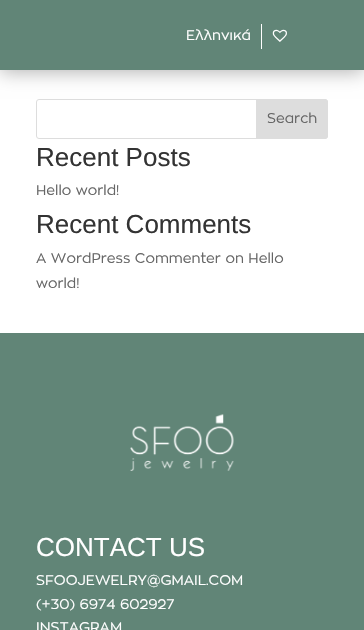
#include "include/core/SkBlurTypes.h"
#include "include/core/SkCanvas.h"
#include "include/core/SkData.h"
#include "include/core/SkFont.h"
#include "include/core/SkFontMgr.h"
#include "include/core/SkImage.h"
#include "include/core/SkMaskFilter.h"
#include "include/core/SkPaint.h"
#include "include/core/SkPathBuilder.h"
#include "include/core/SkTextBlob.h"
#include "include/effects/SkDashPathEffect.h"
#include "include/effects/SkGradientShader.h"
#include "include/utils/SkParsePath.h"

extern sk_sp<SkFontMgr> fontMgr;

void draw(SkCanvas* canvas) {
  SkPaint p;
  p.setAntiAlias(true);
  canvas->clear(SK_ColorWHITE);
  p.setStyle(SkPaint::kStroke_Style);
  p.setStrokeWidth(1);
  p.setColor(SkColorSetRGB(221, 221, 221));
  canvas->drawRoundRect(SkRect::MakeLTRB(36.5f, 99.5f, 327.5f, 138.5f), 2.5f, 2.5f, p);
  p.setStyle(SkPaint::kFill_Style);
  canvas->drawPath(SkPathBuilder().moveTo(256.5f, 99.5f).lineTo(325, 99.5f).cubicTo(326.5f, 99.5f, 327.5f, 100.5f, 327.5f, 102).lineTo(327.5f, 136).cubicTo(327.5f, 137.5f, 326.5f, 138.5f, 325, 138.5f).lineTo(256.5f, 138.5f).close().detach(), p);
  p.setStyle(SkPaint::kStroke_Style);
  canvas->drawPath(SkPathBuilder().moveTo(256.5f, 99.5f).lineTo(325, 99.5f).cubicTo(326.5f, 99.5f, 327.5f, 100.5f, 327.5f, 102).lineTo(327.5f, 136).cubicTo(327.5f, 137.5f, 326.5f, 138.5f, 325, 138.5f).lineTo(256.5f, 138.5f).close().detach(), p);
  p.setStyle(SkPaint::kFill_Style);
  p.setColor(SkColorSetARGB(77, 0, 0, 0));
  p.setMaskFilter(SkMaskFilter::MakeBlur(kNormal_SkBlurStyle, 9));
  canvas->drawRect(SkRect::MakeLTRB(0, 2, 364, 72), p);
  p.setMaskFilter(nullptr);
  p.setColor(SkColorSetRGB(97, 133, 119));
  canvas->drawRect(SkRect::MakeLTRB(0, 0, 364, 70), p);
  p.setColor(SK_ColorWHITE);
  canvas->drawRect(SkRect::MakeLTRB(261, 24, 262, 49), p);
  canvas->drawImageRect(SkImages::DeferredFromEncodedData(SkData::MakeFromFileName("images/1.png")), SkRect::MakeLTRB(272, 29, 287, 42), SkSamplingOptions());
  p.setColor(SkColorSetRGB(97, 133, 119));
  canvas->drawRect(SkRect::MakeLTRB(0, 333, 364, 630), p);
  canvas->drawImageRect(SkImages::DeferredFromEncodedData(SkData::MakeFromFileName("images/2.png")), SkRect::MakeLTRB(130, 414, 234, 471), SkSamplingOptions());
  SkFont font1(fontMgr->matchFamilyStyle("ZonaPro", SkFontStyle::Normal()), 14);
  font1.setSubpixel(true);
  p.setColor(SK_ColorWHITE);
  canvas->drawString("Ελληνικά", 186, 40, font1, p);
  p.setColor(SkColorSetRGB(102, 102, 102));
  canvas->drawString("Search", 267, 123, font1, p);
  SkFont font2(fontMgr->matchFamilyStyle("Liberation Sans", SkFontStyle::Normal()), 26);
  font2.setSubpixel(true);
  p.setColor(SkColorSetRGB(51, 51, 51));
  canvas->drawString("Recent Posts", 36, 166, font2, p);
  p.setColor(SkColorSetRGB(102, 102, 102));
  canvas->drawString("Hello world!", 36, 195, font1, p);
  p.setColor(SkColorSetRGB(51, 51, 51));
  canvas->drawString("Recent Comments", 36, 233, font2, p);
  p.setColor(SkColorSetRGB(102, 102, 102));
  canvas->drawString("A WordPress Commenter on Hello", 36, 263, font1, p);
  canvas->drawString("world!", 36, 288, font1, p);
  p.setColor(SK_ColorWHITE);
  canvas->drawString("CONTACT US", 36, 556, font2, p);
  canvas->drawString("SFOOJEWELRY@GMAIL.COM", 36, 585, font1, p);
  canvas->drawString("(+30) 6974 602927", 36, 609, font1, p);
  canvas->drawString("INSTAGRAM", 36, 632, font1, p);
}
